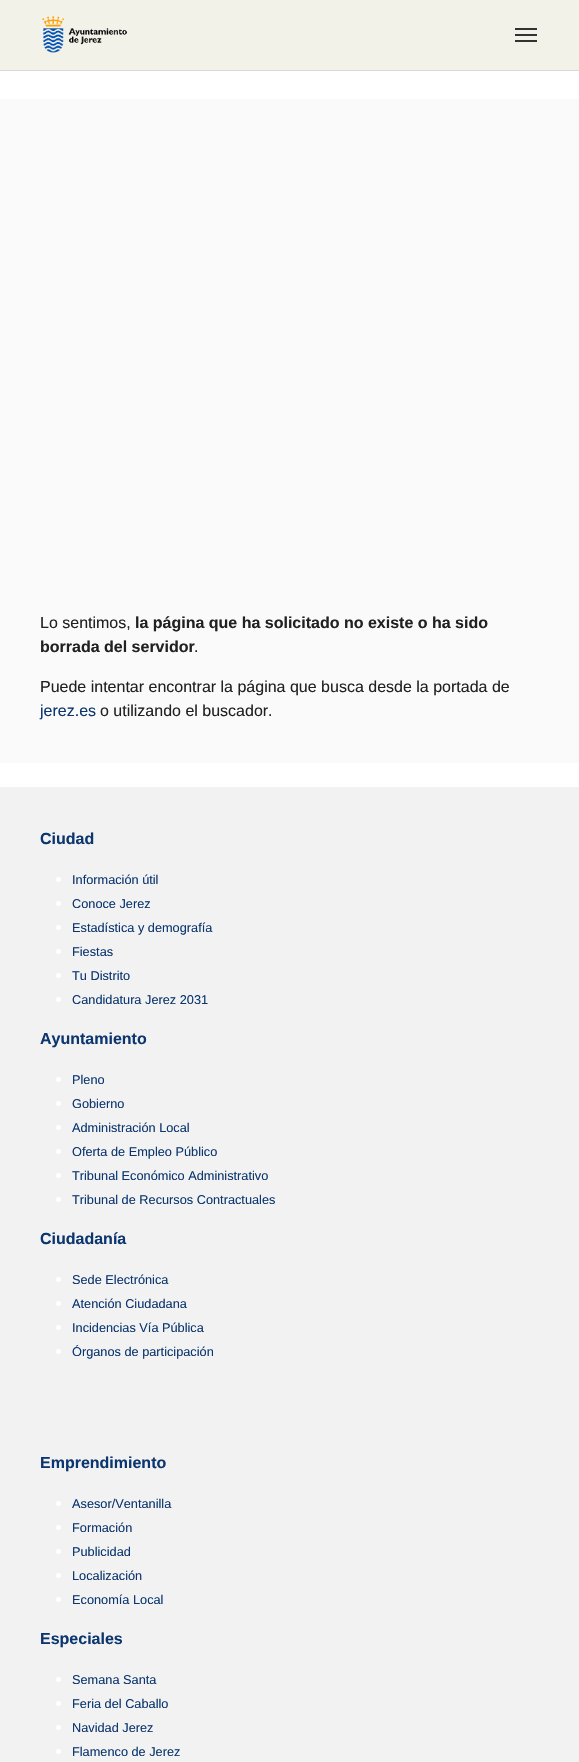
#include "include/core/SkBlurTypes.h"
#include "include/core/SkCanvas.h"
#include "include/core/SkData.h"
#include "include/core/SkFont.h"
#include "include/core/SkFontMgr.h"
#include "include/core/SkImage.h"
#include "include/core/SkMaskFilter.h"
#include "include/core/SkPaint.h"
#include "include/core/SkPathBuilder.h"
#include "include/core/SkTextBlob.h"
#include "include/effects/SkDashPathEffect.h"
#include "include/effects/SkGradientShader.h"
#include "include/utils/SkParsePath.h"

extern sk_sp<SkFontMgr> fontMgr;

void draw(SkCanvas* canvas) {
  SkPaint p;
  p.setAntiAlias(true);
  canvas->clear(SK_ColorWHITE);
  p.setColor(SkColorSetRGB(217, 217, 217));
  canvas->drawRect(SkRect::MakeLTRB(0, 70, 579, 71), p);
  p.setColor(SkColorSetRGB(243, 242, 233));
  canvas->drawRect(SkRect::MakeLTRB(0, 0, 579, 70), p);
  canvas->drawImageRect(SkImages::DeferredFromEncodedData(SkData::MakeFromFileName("images/1.png")), SkRect::MakeLTRB(42, 16, 127, 53), SkSamplingOptions());
  p.setColor(SkColorSetRGB(51, 51, 51));
  canvas->drawRect(SkRect::MakeLTRB(515, 34, 537, 36), p);
  canvas->drawRect(SkRect::MakeLTRB(515, 28, 537, 30), p);
  canvas->drawRect(SkRect::MakeLTRB(515, 40, 537, 42), p);
  p.setColor(SkColorSetRGB(250, 250, 250));
  canvas->drawRect(SkRect::MakeLTRB(0, 99, 579, 763), p);
  p.setColor(SkColorSetRGB(242, 242, 242));
  canvas->drawRect(SkRect::MakeLTRB(0, 787, 579, 1762), p);
  p.setColor(SK_ColorWHITE);
  canvas->drawCircle(58.5f, 879.5f, 2.5f, p);
  canvas->drawCircle(58.5f, 903.5f, 2.5f, p);
  canvas->drawCircle(58.5f, 927.5f, 2.5f, p);
  canvas->drawCircle(58.5f, 951.5f, 2.5f, p);
  canvas->drawCircle(58.5f, 975.5f, 2.5f, p);
  canvas->drawCircle(58.5f, 999.5f, 2.5f, p);
  canvas->drawCircle(58.5f, 1079.5f, 2.5f, p);
  canvas->drawCircle(58.5f, 1103.5f, 2.5f, p);
  canvas->drawCircle(58.5f, 1127.5f, 2.5f, p);
  canvas->drawCircle(58.5f, 1151.5f, 2.5f, p);
  canvas->drawCircle(58.5f, 1175.5f, 2.5f, p);
  canvas->drawCircle(58.5f, 1199.5f, 2.5f, p);
  canvas->drawCircle(58.5f, 1279.5f, 2.5f, p);
  canvas->drawCircle(58.5f, 1303.5f, 2.5f, p);
  canvas->drawCircle(58.5f, 1327.5f, 2.5f, p);
  canvas->drawCircle(58.5f, 1351.5f, 2.5f, p);
  canvas->drawCircle(58.5f, 1503.5f, 2.5f, p);
  canvas->drawCircle(58.5f, 1527.5f, 2.5f, p);
  canvas->drawCircle(58.5f, 1551.5f, 2.5f, p);
  canvas->drawCircle(58.5f, 1575.5f, 2.5f, p);
  canvas->drawCircle(58.5f, 1599.5f, 2.5f, p);
  canvas->drawCircle(58.5f, 1679.5f, 2.5f, p);
  canvas->drawCircle(58.5f, 1703.5f, 2.5f, p);
  canvas->drawCircle(58.5f, 1727.5f, 2.5f, p);
  canvas->drawCircle(58.5f, 1751.5f, 2.5f, p);
  SkFont font1(fontMgr->matchFamilyStyle("Liberation Sans", SkFontStyle::Normal()), 16);
  font1.setSubpixel(true);
  p.setColor(SkColorSetRGB(33, 33, 33));
  canvas->drawString("Lo sentimos,", 40, 628, font1, p);
  SkFont font2(fontMgr->matchFamilyStyle("Liberation Sans", SkFontStyle::Bold()), 16);
  font2.setSubpixel(true);
  canvas->drawString("la página que ha solicitado no existe o ha sido", 135, 628, font2, p);
  canvas->drawString("borrada del servidor", 40, 652, font2, p);
  canvas->drawString(".", 194, 652, font1, p);
  canvas->drawString("Puede intentar encontrar la página que busca desde la portada de", 40, 692, font1, p);
  p.setColor(SkColorSetRGB(12, 54, 111));
  canvas->drawString("jerez.es", 40, 716, font1, p);
  p.setColor(SkColorSetRGB(33, 33, 33));
  canvas->drawString("o utilizando el buscador.", 100, 716, font1, p);
  p.setColor(SkColorSetRGB(12, 54, 111));
  canvas->drawString("Ciudad", 40, 844, font2, p);
  SkFont font3(fontMgr->matchFamilyStyle("Liberation Sans", SkFontStyle::Normal()), 12.75f);
  font3.setSubpixel(true);
  canvas->drawString("Información útil", 72, 884, font3, p);
  canvas->drawString("Conoce Jerez", 72, 908, font3, p);
  canvas->drawString("Estadística y demografía", 72, 932, font3, p);
  canvas->drawString("Fiestas", 72, 956, font3, p);
  canvas->drawString("Tu Distrito", 72, 980, font3, p);
  canvas->drawString("Candidatura Jerez 2031", 72, 1004, font3, p);
  canvas->drawString("Ayuntamiento", 40, 1044, font2, p);
  canvas->drawString("Pleno", 72, 1084, font3, p);
  canvas->drawString("Gobierno", 72, 1108, font3, p);
  canvas->drawString("Administración Local", 72, 1132, font3, p);
  canvas->drawString("Oferta de Empleo Público", 72, 1156, font3, p);
  canvas->drawString("Tribunal Económico Administrativo", 72, 1180, font3, p);
  canvas->drawString("Tribunal de Recursos Contractuales", 72, 1204, font3, p);
  canvas->drawString("Ciudadanía", 40, 1244, font2, p);
  canvas->drawString("Sede Electrónica", 72, 1284, font3, p);
  canvas->drawString("Atención Ciudadana", 72, 1308, font3, p);
  canvas->drawString("Incidencias Vía Pública", 72, 1332, font3, p);
  canvas->drawString("Órganos de participación", 72, 1356, font3, p);
  canvas->drawString("Emprendimiento", 40, 1468, font2, p);
  canvas->drawString("Asesor/Ventanilla", 72, 1508, font3, p);
  canvas->drawString("Formación", 72, 1532, font3, p);
  canvas->drawString("Publicidad", 72, 1556, font3, p);
  canvas->drawString("Localización", 72, 1580, font3, p);
  canvas->drawString("Economía Local", 72, 1604, font3, p);
  canvas->drawString("Especiales", 40, 1644, font2, p);
  canvas->drawString("Semana Santa", 72, 1684, font3, p);
  canvas->drawString("Feria del Caballo", 72, 1708, font3, p);
  canvas->drawString("Navidad Jerez", 72, 1732, font3, p);
  canvas->drawString("Flamenco de Jerez", 72, 1756, font3, p);
}
